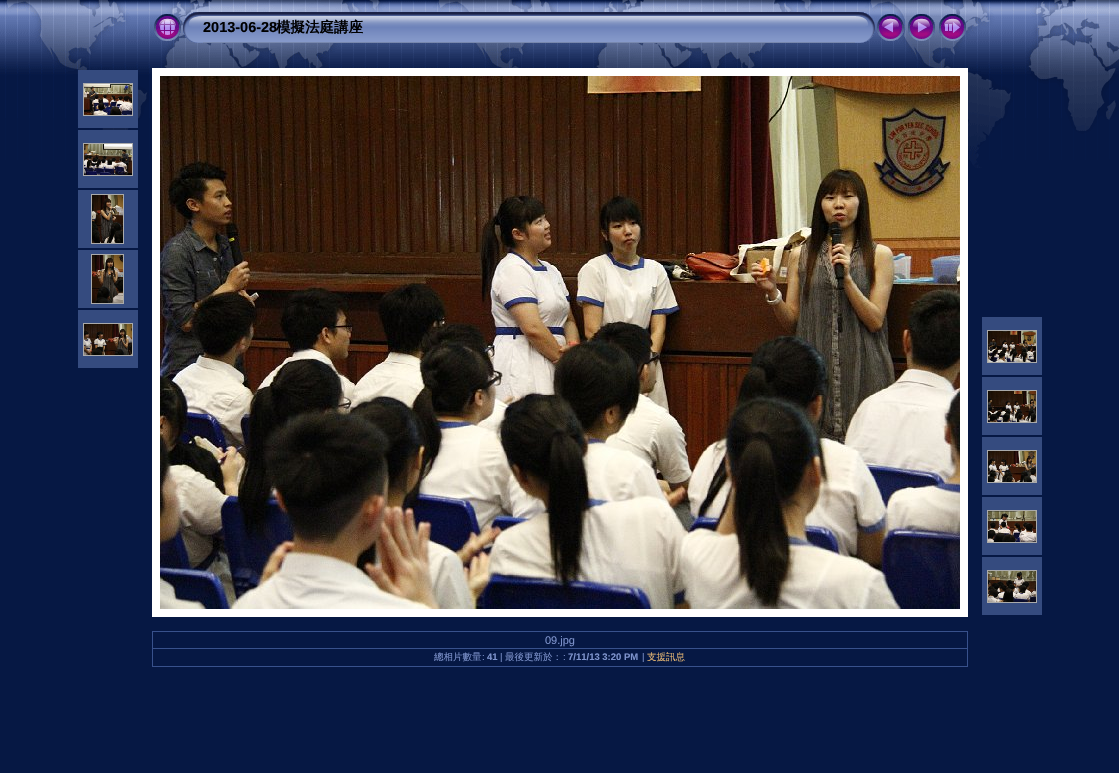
#include "include/core/SkBlurTypes.h"
#include "include/core/SkCanvas.h"
#include "include/core/SkData.h"
#include "include/core/SkFont.h"
#include "include/core/SkFontMgr.h"
#include "include/core/SkImage.h"
#include "include/core/SkMaskFilter.h"
#include "include/core/SkPaint.h"
#include "include/core/SkPathBuilder.h"
#include "include/core/SkTextBlob.h"
#include "include/effects/SkDashPathEffect.h"
#include "include/effects/SkGradientShader.h"
#include "include/utils/SkParsePath.h"

extern sk_sp<SkFontMgr> fontMgr;

void draw(SkCanvas* canvas) {
  SkPaint p;
  p.setAntiAlias(true);
  canvas->clear(SkColorSetRGB(6, 24, 68));
  canvas->drawImageRect(SkImages::DeferredFromEncodedData(SkData::MakeFromFileName("images/1.png")), SkRect::MakeLTRB(0, 0, 1119, 168), SkSamplingOptions());
  canvas->drawImageRect(SkImages::DeferredFromEncodedData(SkData::MakeFromFileName("images/2.png")), SkRect::MakeLTRB(154, 14, 181, 41), SkSamplingOptions());
  canvas->drawImageRect(SkImages::DeferredFromEncodedData(SkData::MakeFromFileName("images/3.png")), SkRect::MakeLTRB(183, 12, 203, 43), SkSamplingOptions());
  canvas->drawImageRect(SkImages::DeferredFromEncodedData(SkData::MakeFromFileName("images/4.png")), SkRect::MakeLTRB(203, 12, 855, 43), SkSamplingOptions());
  canvas->drawImageRect(SkImages::DeferredFromEncodedData(SkData::MakeFromFileName("images/5.png")), SkRect::MakeLTRB(855, 12, 875, 43), SkSamplingOptions());
  canvas->drawImageRect(SkImages::DeferredFromEncodedData(SkData::MakeFromFileName("images/6.png")), SkRect::MakeLTRB(877, 14, 904, 41), SkSamplingOptions());
  canvas->drawImageRect(SkImages::DeferredFromEncodedData(SkData::MakeFromFileName("images/7.png")), SkRect::MakeLTRB(908, 14, 935, 41), SkSamplingOptions());
  canvas->drawImageRect(SkImages::DeferredFromEncodedData(SkData::MakeFromFileName("images/8.png")), SkRect::MakeLTRB(939, 14, 966, 41), SkSamplingOptions());
  p.setColor(SkColorSetRGB(53, 75, 127));
  canvas->drawRect(SkRect::MakeLTRB(78, 70, 138, 128), p);
  p.setStyle(SkPaint::kStroke_Style);
  p.setStrokeWidth(1);
  p.setColor(SkColorSetRGB(170, 170, 170));
  canvas->drawRect(SkRect::MakeLTRB(83.5f, 83.5f, 132.5f, 115.5f), p);
  canvas->drawImageRect(SkImages::DeferredFromEncodedData(SkData::MakeFromFileName("images/9.png")), SkRect::MakeLTRB(84, 84, 132, 115), SkSamplingOptions());
  p.setStyle(SkPaint::kFill_Style);
  p.setColor(SkColorSetRGB(53, 75, 127));
  canvas->drawRect(SkRect::MakeLTRB(78, 130, 138, 188), p);
  p.setStyle(SkPaint::kStroke_Style);
  p.setColor(SkColorSetRGB(170, 170, 170));
  canvas->drawRect(SkRect::MakeLTRB(83.5f, 143.5f, 132.5f, 175.5f), p);
  canvas->drawImageRect(SkImages::DeferredFromEncodedData(SkData::MakeFromFileName("images/10.png")), SkRect::MakeLTRB(84, 144, 132, 175), SkSamplingOptions());
  p.setStyle(SkPaint::kFill_Style);
  p.setColor(SkColorSetRGB(53, 75, 127));
  canvas->drawRect(SkRect::MakeLTRB(78, 190, 138, 248), p);
  p.setStyle(SkPaint::kStroke_Style);
  p.setColor(SkColorSetRGB(170, 170, 170));
  canvas->drawRect(SkRect::MakeLTRB(91.5f, 194.5f, 123.5f, 243.5f), p);
  canvas->drawImageRect(SkImages::DeferredFromEncodedData(SkData::MakeFromFileName("images/11.png")), SkRect::MakeLTRB(92, 195, 123, 243), SkSamplingOptions());
  p.setStyle(SkPaint::kFill_Style);
  p.setColor(SkColorSetRGB(53, 75, 127));
  canvas->drawRect(SkRect::MakeLTRB(78, 250, 138, 308), p);
  p.setStyle(SkPaint::kStroke_Style);
  p.setColor(SkColorSetRGB(170, 170, 170));
  canvas->drawRect(SkRect::MakeLTRB(91.5f, 254.5f, 123.5f, 303.5f), p);
  canvas->drawImageRect(SkImages::DeferredFromEncodedData(SkData::MakeFromFileName("images/12.png")), SkRect::MakeLTRB(92, 255, 123, 303), SkSamplingOptions());
  p.setStyle(SkPaint::kFill_Style);
  p.setColor(SkColorSetRGB(53, 75, 127));
  canvas->drawRect(SkRect::MakeLTRB(78, 310, 138, 368), p);
  p.setStyle(SkPaint::kStroke_Style);
  p.setColor(SkColorSetRGB(170, 170, 170));
  canvas->drawRect(SkRect::MakeLTRB(83.5f, 323.5f, 132.5f, 355.5f), p);
  canvas->drawImageRect(SkImages::DeferredFromEncodedData(SkData::MakeFromFileName("images/13.png")), SkRect::MakeLTRB(84, 324, 132, 355), SkSamplingOptions());
  p.setStrokeWidth(8);
  p.setColor(SK_ColorWHITE);
  canvas->drawRect(SkRect::MakeLTRB(156, 72, 964, 613), p);
  canvas->drawImageRect(SkImages::DeferredFromEncodedData(SkData::MakeFromFileName("images/14.png")), SkRect::MakeLTRB(160, 76, 960, 609), SkSamplingOptions());
  p.setStyle(SkPaint::kFill_Style);
  p.setColor(SkColorSetRGB(53, 75, 127));
  canvas->drawRect(SkRect::MakeLTRB(982, 317, 1042, 375), p);
  p.setStyle(SkPaint::kStroke_Style);
  p.setStrokeWidth(1);
  p.setColor(SkColorSetRGB(170, 170, 170));
  canvas->drawRect(SkRect::MakeLTRB(987.5f, 330.5f, 1036.5f, 362.5f), p);
  canvas->drawImageRect(SkImages::DeferredFromEncodedData(SkData::MakeFromFileName("images/15.png")), SkRect::MakeLTRB(988, 331, 1036, 362), SkSamplingOptions());
  p.setStyle(SkPaint::kFill_Style);
  p.setColor(SkColorSetRGB(53, 75, 127));
  canvas->drawRect(SkRect::MakeLTRB(982, 377, 1042, 435), p);
  p.setStyle(SkPaint::kStroke_Style);
  p.setColor(SkColorSetRGB(170, 170, 170));
  canvas->drawRect(SkRect::MakeLTRB(987.5f, 390.5f, 1036.5f, 422.5f), p);
  canvas->drawImageRect(SkImages::DeferredFromEncodedData(SkData::MakeFromFileName("images/16.png")), SkRect::MakeLTRB(988, 391, 1036, 422), SkSamplingOptions());
  p.setStyle(SkPaint::kFill_Style);
  p.setColor(SkColorSetRGB(53, 75, 127));
  canvas->drawRect(SkRect::MakeLTRB(982, 437, 1042, 495), p);
  p.setStyle(SkPaint::kStroke_Style);
  p.setColor(SkColorSetRGB(170, 170, 170));
  canvas->drawRect(SkRect::MakeLTRB(987.5f, 450.5f, 1036.5f, 482.5f), p);
  canvas->drawImageRect(SkImages::DeferredFromEncodedData(SkData::MakeFromFileName("images/17.png")), SkRect::MakeLTRB(988, 451, 1036, 482), SkSamplingOptions());
  p.setStyle(SkPaint::kFill_Style);
  p.setColor(SkColorSetRGB(53, 75, 127));
  canvas->drawRect(SkRect::MakeLTRB(982, 497, 1042, 555), p);
  p.setStyle(SkPaint::kStroke_Style);
  p.setColor(SkColorSetRGB(170, 170, 170));
  canvas->drawRect(SkRect::MakeLTRB(987.5f, 510.5f, 1036.5f, 542.5f), p);
  canvas->drawImageRect(SkImages::DeferredFromEncodedData(SkData::MakeFromFileName("images/18.png")), SkRect::MakeLTRB(988, 511, 1036, 542), SkSamplingOptions());
  p.setStyle(SkPaint::kFill_Style);
  p.setColor(SkColorSetRGB(53, 75, 127));
  canvas->drawRect(SkRect::MakeLTRB(982, 557, 1042, 615), p);
  p.setStyle(SkPaint::kStroke_Style);
  p.setColor(SkColorSetRGB(170, 170, 170));
  canvas->drawRect(SkRect::MakeLTRB(987.5f, 570.5f, 1036.5f, 602.5f), p);
  canvas->drawImageRect(SkImages::DeferredFromEncodedData(SkData::MakeFromFileName("images/19.png")), SkRect::MakeLTRB(988, 571, 1036, 602), SkSamplingOptions());
  p.setStyle(SkPaint::kFill_Style);
  p.setColor(SkColorSetRGB(56, 81, 140));
  canvas->drawRect(SkRect::MakeLTRB(152, 631, 968, 632), p);
  canvas->drawRect(SkRect::MakeLTRB(152, 648, 968, 649), p);
  canvas->drawRect(SkRect::MakeLTRB(967, 648, 968, 667), p);
  canvas->drawRect(SkRect::MakeLTRB(967, 631, 968, 649), p);
  canvas->drawRect(SkRect::MakeLTRB(152, 666, 968, 667), p);
  canvas->drawRect(SkRect::MakeLTRB(152, 648, 153, 667), p);
  canvas->drawRect(SkRect::MakeLTRB(152, 631, 153, 649), p);
  SkFont font1(fontMgr->matchFamilyStyle("Liberation Sans", SkFontStyle::Bold()), 14.5f);
  font1.setSubpixel(true);
  p.setColor(SK_ColorBLACK);
  canvas->drawString("2013-06-28", 203, 32, font1, p);
  SkFont font2(fontMgr->matchFamilyStyle("WenQuanYi Zen Hei", SkFontStyle::Bold()), 14.5f);
  font2.setSubpixel(true);
  canvas->drawString("模擬法庭講座", 276, 32, font2, p);
  SkFont font3(fontMgr->matchFamilyStyle("Liberation Sans", SkFontStyle::Normal()), 11);
  font3.setSubpixel(true);
  p.setColor(SkColorSetRGB(126, 147, 204));
  canvas->drawString("09.jpg", 545, 644, font3, p);
  SkFont font4(fontMgr->matchFamilyStyle("WenQuanYi Zen Hei", SkFontStyle(500, SkFontStyle::kNormal_Width, SkFontStyle::kUpright_Slant)), 9.5f);
  font4.setSubpixel(true);
  canvas->drawString("總相片數量", 434, 660, font4, p);
  SkFont font5(fontMgr->matchFamilyStyle("Liberation Sans", SkFontStyle::Normal()), 9.5f);
  font5.setSubpixel(true);
  canvas->drawString(":", 482, 660, font5, p);
  SkFont font6(fontMgr->matchFamilyStyle("Liberation Sans", SkFontStyle::Bold()), 9.5f);
  font6.setSubpixel(true);
  canvas->drawString("41", 487, 660, font6, p);
  canvas->drawString("|", 500, 660, font5, p);
  canvas->drawString("最後更新於：", 505, 660, font4, p);
  canvas->drawString(":", 563, 660, font5, p);
  canvas->drawString("7/11/13 3:20 PM", 568, 660, font6, p);
  canvas->drawString("|", 642, 660, font5, p);
  p.setColor(SkColorSetRGB(229, 182, 115));
  canvas->drawString("支援訊息", 647, 660, font4, p);
}
